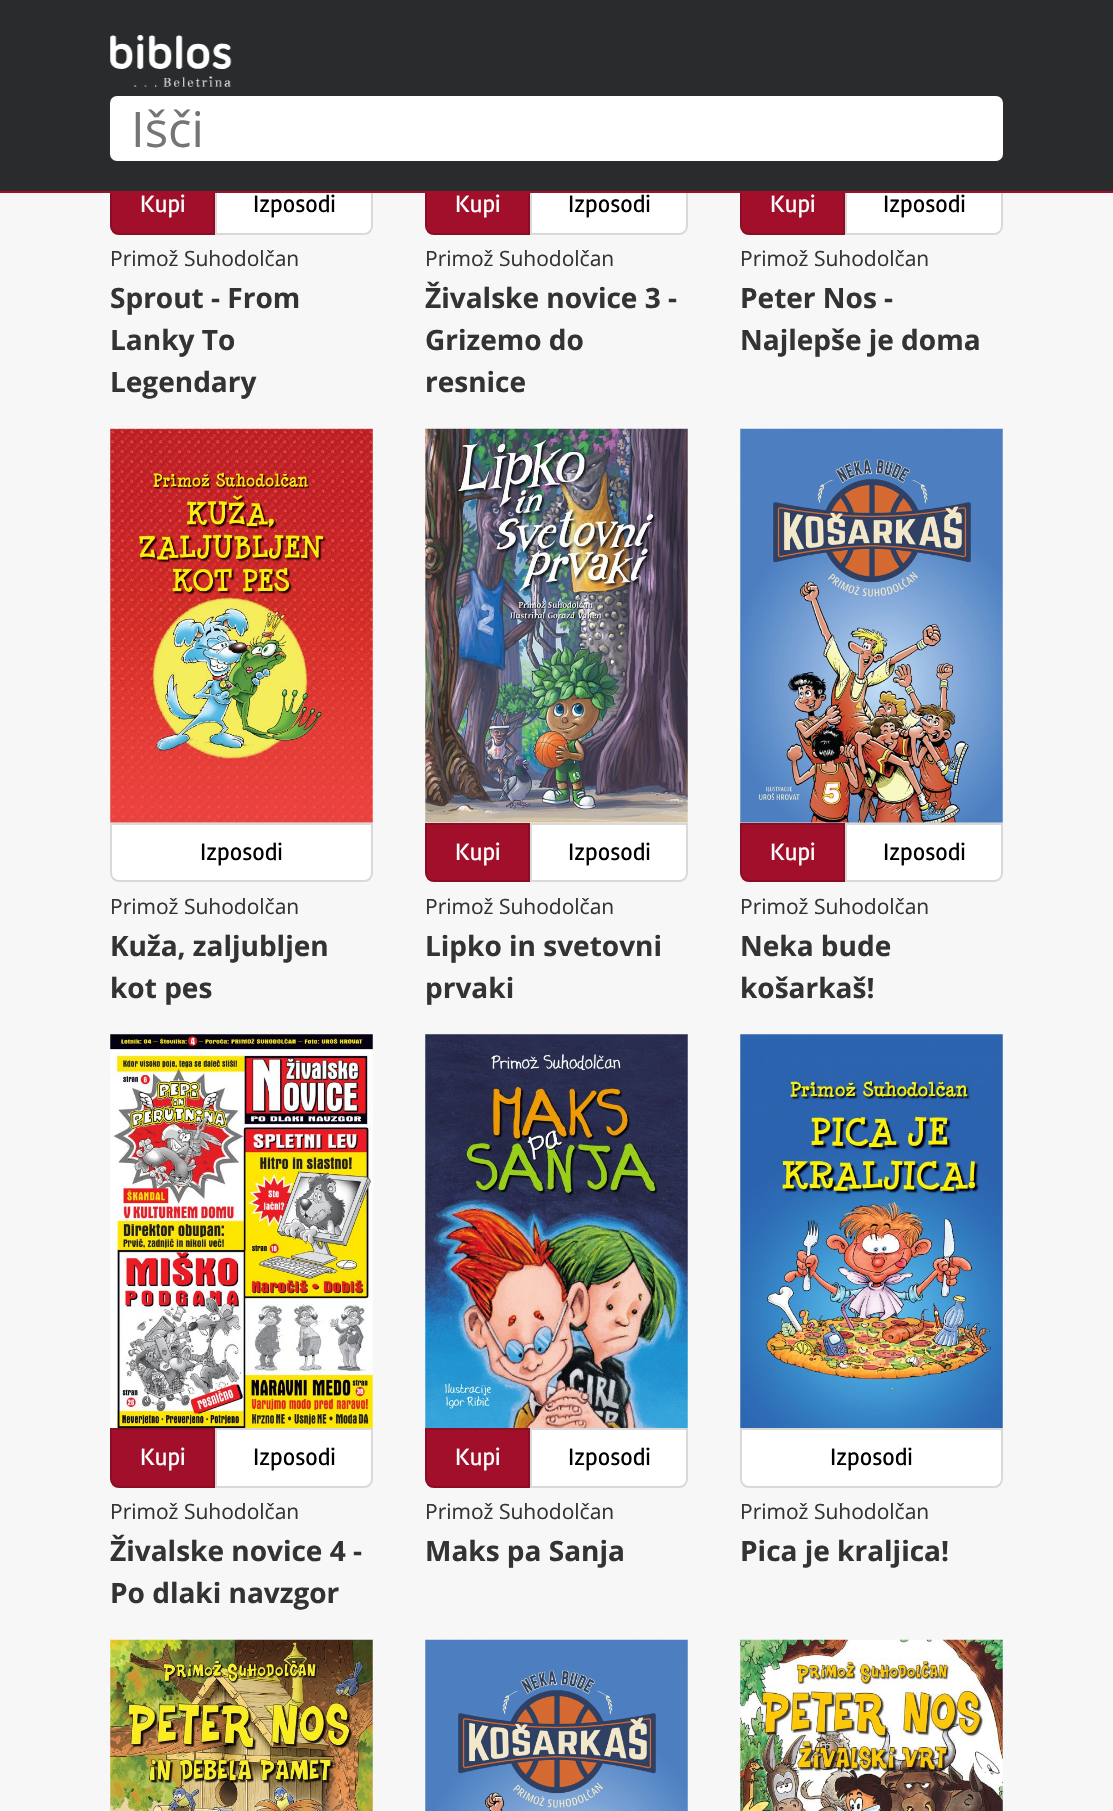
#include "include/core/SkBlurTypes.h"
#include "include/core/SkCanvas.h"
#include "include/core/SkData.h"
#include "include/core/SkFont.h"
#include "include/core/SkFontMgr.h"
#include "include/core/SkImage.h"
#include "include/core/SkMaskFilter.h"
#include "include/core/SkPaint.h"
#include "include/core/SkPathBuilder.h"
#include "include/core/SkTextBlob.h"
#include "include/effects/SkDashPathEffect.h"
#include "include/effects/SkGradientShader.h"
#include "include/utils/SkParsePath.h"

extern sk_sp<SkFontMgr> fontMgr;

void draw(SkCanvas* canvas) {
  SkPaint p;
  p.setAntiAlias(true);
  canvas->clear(SkColorSetRGB(247, 247, 247));
  p.setColor(SkColorSetRGB(161, 15, 43));
  canvas->drawPath(SkPathBuilder().moveTo(111, 176).lineTo(214, 176).lineTo(214, 234).lineTo(119, 234).cubicTo(114.5f, 234, 111, 230.5f, 111, 226).close().detach(), p);
  p.setStyle(SkPaint::kStroke_Style);
  p.setStrokeWidth(2);
  p.setColor(SkColorSetRGB(138, 13, 37));
  canvas->drawPath(SkPathBuilder().moveTo(111, 176).lineTo(214, 176).lineTo(214, 234).lineTo(119, 234).cubicTo(114.5f, 234, 111, 230.5f, 111, 226).close().detach(), p);
  p.setStyle(SkPaint::kFill_Style);
  p.setColor(SK_ColorWHITE);
  canvas->drawPath(SkPathBuilder().moveTo(216, 176).lineTo(372, 176).lineTo(372, 226).cubicTo(372, 230.5f, 368.5f, 234, 364, 234).lineTo(216, 234).close().detach(), p);
  p.setStyle(SkPaint::kStroke_Style);
  p.setColor(SkColorSetRGB(217, 217, 217));
  canvas->drawPath(SkPathBuilder().moveTo(216, 176).lineTo(372, 176).lineTo(372, 226).cubicTo(372, 230.5f, 368.5f, 234, 364, 234).lineTo(216, 234).close().detach(), p);
  p.setStyle(SkPaint::kFill_Style);
  p.setColor(SkColorSetRGB(161, 15, 43));
  canvas->drawPath(SkPathBuilder().moveTo(426, 176).lineTo(529, 176).lineTo(529, 234).lineTo(434, 234).cubicTo(429.5f, 234, 426, 230.5f, 426, 226).close().detach(), p);
  p.setStyle(SkPaint::kStroke_Style);
  p.setColor(SkColorSetRGB(138, 13, 37));
  canvas->drawPath(SkPathBuilder().moveTo(426, 176).lineTo(529, 176).lineTo(529, 234).lineTo(434, 234).cubicTo(429.5f, 234, 426, 230.5f, 426, 226).close().detach(), p);
  p.setStyle(SkPaint::kFill_Style);
  p.setColor(SK_ColorWHITE);
  canvas->drawPath(SkPathBuilder().moveTo(531, 176).lineTo(687, 176).lineTo(687, 226).cubicTo(687, 230.5f, 683.5f, 234, 679, 234).lineTo(531, 234).close().detach(), p);
  p.setStyle(SkPaint::kStroke_Style);
  p.setColor(SkColorSetRGB(217, 217, 217));
  canvas->drawPath(SkPathBuilder().moveTo(531, 176).lineTo(687, 176).lineTo(687, 226).cubicTo(687, 230.5f, 683.5f, 234, 679, 234).lineTo(531, 234).close().detach(), p);
  p.setStyle(SkPaint::kFill_Style);
  p.setColor(SkColorSetRGB(161, 15, 43));
  canvas->drawPath(SkPathBuilder().moveTo(741, 176).lineTo(844, 176).lineTo(844, 234).lineTo(749, 234).cubicTo(744.5f, 234, 741, 230.5f, 741, 226).close().detach(), p);
  p.setStyle(SkPaint::kStroke_Style);
  p.setColor(SkColorSetRGB(138, 13, 37));
  canvas->drawPath(SkPathBuilder().moveTo(741, 176).lineTo(844, 176).lineTo(844, 234).lineTo(749, 234).cubicTo(744.5f, 234, 741, 230.5f, 741, 226).close().detach(), p);
  p.setStyle(SkPaint::kFill_Style);
  p.setColor(SK_ColorWHITE);
  canvas->drawPath(SkPathBuilder().moveTo(846, 176).lineTo(1002, 176).lineTo(1002, 226).cubicTo(1002, 230.5f, 998.5f, 234, 994, 234).lineTo(846, 234).close().detach(), p);
  p.setStyle(SkPaint::kStroke_Style);
  p.setColor(SkColorSetRGB(217, 217, 217));
  canvas->drawPath(SkPathBuilder().moveTo(846, 176).lineTo(1002, 176).lineTo(1002, 226).cubicTo(1002, 230.5f, 998.5f, 234, 994, 234).lineTo(846, 234).close().detach(), p);
  p.setStyle(SkPaint::kFill_Style);
  p.setColor(SkColorSetRGB(41, 43, 44));
  canvas->drawRect(SkRect::MakeLTRB(0, 0, 1113, 191), p);
  p.setColor(SkColorSetRGB(161, 15, 43));
  canvas->drawRect(SkRect::MakeLTRB(0, 191, 1113, 193), p);
  canvas->drawImageRect(SkImages::DeferredFromEncodedData(SkData::MakeFromFileName("images/1.png")), SkRect::MakeLTRB(110, 35, 232, 87), SkSamplingOptions());
  p.setColor(SK_ColorWHITE);
  canvas->drawRoundRect(SkRect::MakeLTRB(112, 98, 1001, 159), 5, 5, p);
  p.setStyle(SkPaint::kStroke_Style);
  p.setStrokeWidth(4);
  canvas->drawRoundRect(SkRect::MakeLTRB(112, 98, 1001, 159), 5, 5, p);
  canvas->drawImageRect(SkImages::DeferredFromEncodedData(SkData::MakeFromFileName("images/2.png")), SkRect::MakeLTRB(110, 428, 373, 823), SkSamplingOptions());
  p.setStyle(SkPaint::kFill_Style);
  canvas->drawPath(SkPathBuilder().moveTo(111, 824).lineTo(372, 824).lineTo(372, 873).cubicTo(372, 877.5f, 368.5f, 881, 364, 881).lineTo(119, 881).cubicTo(114.5f, 881, 111, 877.5f, 111, 873).close().detach(), p);
  p.setStyle(SkPaint::kStroke_Style);
  p.setStrokeWidth(2);
  p.setColor(SkColorSetRGB(217, 217, 217));
  canvas->drawPath(SkPathBuilder().moveTo(111, 824).lineTo(372, 824).lineTo(372, 873).cubicTo(372, 877.5f, 368.5f, 881, 364, 881).lineTo(119, 881).cubicTo(114.5f, 881, 111, 877.5f, 111, 873).close().detach(), p);
  canvas->drawImageRect(SkImages::DeferredFromEncodedData(SkData::MakeFromFileName("images/3.png")), SkRect::MakeLTRB(425, 428, 688, 823), SkSamplingOptions());
  p.setStyle(SkPaint::kFill_Style);
  p.setColor(SkColorSetRGB(161, 15, 43));
  canvas->drawPath(SkPathBuilder().moveTo(426, 824).lineTo(529, 824).lineTo(529, 881).lineTo(434, 881).cubicTo(429.5f, 881, 426, 877.5f, 426, 873).close().detach(), p);
  p.setStyle(SkPaint::kStroke_Style);
  p.setColor(SkColorSetRGB(138, 13, 37));
  canvas->drawPath(SkPathBuilder().moveTo(426, 824).lineTo(529, 824).lineTo(529, 881).lineTo(434, 881).cubicTo(429.5f, 881, 426, 877.5f, 426, 873).close().detach(), p);
  p.setStyle(SkPaint::kFill_Style);
  p.setColor(SK_ColorWHITE);
  canvas->drawPath(SkPathBuilder().moveTo(531, 824).lineTo(687, 824).lineTo(687, 873).cubicTo(687, 877.5f, 683.5f, 881, 679, 881).lineTo(531, 881).close().detach(), p);
  p.setStyle(SkPaint::kStroke_Style);
  p.setColor(SkColorSetRGB(217, 217, 217));
  canvas->drawPath(SkPathBuilder().moveTo(531, 824).lineTo(687, 824).lineTo(687, 873).cubicTo(687, 877.5f, 683.5f, 881, 679, 881).lineTo(531, 881).close().detach(), p);
  canvas->drawImageRect(SkImages::DeferredFromEncodedData(SkData::MakeFromFileName("images/4.png")), SkRect::MakeLTRB(740, 428, 1003, 823), SkSamplingOptions());
  p.setStyle(SkPaint::kFill_Style);
  p.setColor(SkColorSetRGB(161, 15, 43));
  canvas->drawPath(SkPathBuilder().moveTo(741, 824).lineTo(844, 824).lineTo(844, 881).lineTo(749, 881).cubicTo(744.5f, 881, 741, 877.5f, 741, 873).close().detach(), p);
  p.setStyle(SkPaint::kStroke_Style);
  p.setColor(SkColorSetRGB(138, 13, 37));
  canvas->drawPath(SkPathBuilder().moveTo(741, 824).lineTo(844, 824).lineTo(844, 881).lineTo(749, 881).cubicTo(744.5f, 881, 741, 877.5f, 741, 873).close().detach(), p);
  p.setStyle(SkPaint::kFill_Style);
  p.setColor(SK_ColorWHITE);
  canvas->drawPath(SkPathBuilder().moveTo(846, 824).lineTo(1002, 824).lineTo(1002, 873).cubicTo(1002, 877.5f, 998.5f, 881, 994, 881).lineTo(846, 881).close().detach(), p);
  p.setStyle(SkPaint::kStroke_Style);
  p.setColor(SkColorSetRGB(217, 217, 217));
  canvas->drawPath(SkPathBuilder().moveTo(846, 824).lineTo(1002, 824).lineTo(1002, 873).cubicTo(1002, 877.5f, 998.5f, 881, 994, 881).lineTo(846, 881).close().detach(), p);
  canvas->drawImageRect(SkImages::DeferredFromEncodedData(SkData::MakeFromFileName("images/5.png")), SkRect::MakeLTRB(110, 1034, 373, 1428), SkSamplingOptions());
  p.setStyle(SkPaint::kFill_Style);
  p.setColor(SkColorSetRGB(161, 15, 43));
  canvas->drawPath(SkPathBuilder().moveTo(111, 1429).lineTo(214, 1429).lineTo(214, 1487).lineTo(119, 1487).cubicTo(114.5f, 1487, 111, 1483.5f, 111, 1479).close().detach(), p);
  p.setStyle(SkPaint::kStroke_Style);
  p.setColor(SkColorSetRGB(138, 13, 37));
  canvas->drawPath(SkPathBuilder().moveTo(111, 1429).lineTo(214, 1429).lineTo(214, 1487).lineTo(119, 1487).cubicTo(114.5f, 1487, 111, 1483.5f, 111, 1479).close().detach(), p);
  p.setStyle(SkPaint::kFill_Style);
  p.setColor(SK_ColorWHITE);
  canvas->drawPath(SkPathBuilder().moveTo(216, 1429).lineTo(372, 1429).lineTo(372, 1479).cubicTo(372, 1483.5f, 368.5f, 1487, 364, 1487).lineTo(216, 1487).close().detach(), p);
  p.setStyle(SkPaint::kStroke_Style);
  p.setColor(SkColorSetRGB(217, 217, 217));
  canvas->drawPath(SkPathBuilder().moveTo(216, 1429).lineTo(372, 1429).lineTo(372, 1479).cubicTo(372, 1483.5f, 368.5f, 1487, 364, 1487).lineTo(216, 1487).close().detach(), p);
  canvas->drawImageRect(SkImages::DeferredFromEncodedData(SkData::MakeFromFileName("images/6.png")), SkRect::MakeLTRB(425, 1034, 688, 1428), SkSamplingOptions());
  p.setStyle(SkPaint::kFill_Style);
  p.setColor(SkColorSetRGB(161, 15, 43));
  canvas->drawPath(SkPathBuilder().moveTo(426, 1429).lineTo(529, 1429).lineTo(529, 1487).lineTo(434, 1487).cubicTo(429.5f, 1487, 426, 1483.5f, 426, 1479).close().detach(), p);
  p.setStyle(SkPaint::kStroke_Style);
  p.setColor(SkColorSetRGB(138, 13, 37));
  canvas->drawPath(SkPathBuilder().moveTo(426, 1429).lineTo(529, 1429).lineTo(529, 1487).lineTo(434, 1487).cubicTo(429.5f, 1487, 426, 1483.5f, 426, 1479).close().detach(), p);
  p.setStyle(SkPaint::kFill_Style);
  p.setColor(SK_ColorWHITE);
  canvas->drawPath(SkPathBuilder().moveTo(531, 1429).lineTo(687, 1429).lineTo(687, 1479).cubicTo(687, 1483.5f, 683.5f, 1487, 679, 1487).lineTo(531, 1487).close().detach(), p);
  p.setStyle(SkPaint::kStroke_Style);
  p.setColor(SkColorSetRGB(217, 217, 217));
  canvas->drawPath(SkPathBuilder().moveTo(531, 1429).lineTo(687, 1429).lineTo(687, 1479).cubicTo(687, 1483.5f, 683.5f, 1487, 679, 1487).lineTo(531, 1487).close().detach(), p);
  canvas->drawImageRect(SkImages::DeferredFromEncodedData(SkData::MakeFromFileName("images/7.png")), SkRect::MakeLTRB(740, 1034, 1003, 1428), SkSamplingOptions());
  p.setStyle(SkPaint::kFill_Style);
  p.setColor(SK_ColorWHITE);
  canvas->drawPath(SkPathBuilder().moveTo(741, 1429).lineTo(1002, 1429).lineTo(1002, 1479).cubicTo(1002, 1483.5f, 998.5f, 1487, 994, 1487).lineTo(749, 1487).cubicTo(744.5f, 1487, 741, 1483.5f, 741, 1479).close().detach(), p);
  p.setStyle(SkPaint::kStroke_Style);
  p.setColor(SkColorSetRGB(217, 217, 217));
  canvas->drawPath(SkPathBuilder().moveTo(741, 1429).lineTo(1002, 1429).lineTo(1002, 1479).cubicTo(1002, 1483.5f, 998.5f, 1487, 994, 1487).lineTo(749, 1487).cubicTo(744.5f, 1487, 741, 1483.5f, 741, 1479).close().detach(), p);
  canvas->drawImageRect(SkImages::DeferredFromEncodedData(SkData::MakeFromFileName("images/8.png")), SkRect::MakeLTRB(110, 1639, 373, 1811), SkSamplingOptions());
  canvas->drawImageRect(SkImages::DeferredFromEncodedData(SkData::MakeFromFileName("images/9.png")), SkRect::MakeLTRB(425, 1639, 688, 1811), SkSamplingOptions());
  canvas->drawImageRect(SkImages::DeferredFromEncodedData(SkData::MakeFromFileName("images/10.png")), SkRect::MakeLTRB(740, 1639, 1003, 1811), SkSamplingOptions());
  SkFont font1(fontMgr->matchFamilyStyle("Open Sans", SkFontStyle::Normal()), 49);
  font1.setSubpixel(true);
  p.setStyle(SkPaint::kFill_Style);
  p.setColor(SkColorSetRGB(117, 117, 117));
  canvas->drawString("Išči", 131, 147, font1, p);
  SkFont font2(fontMgr->matchFamilyStyle("Rambla", SkFontStyle::Normal()), 24.5f);
  font2.setSubpixel(true);
  p.setColor(SK_ColorWHITE);
  canvas->drawString("Kupi", 140, 212, font2, p);
  p.setColor(SK_ColorBLACK);
  canvas->drawString("Izposodi", 253, 212, font2, p);
  SkFont font3(fontMgr->matchFamilyStyle("Open Sans", SkFontStyle::Normal()), 21);
  font3.setSubpixel(true);
  p.setColor(SkColorSetRGB(51, 51, 51));
  canvas->drawString("Primož Suhodolčan", 110, 266, font3, p);
  SkFont font4(fontMgr->matchFamilyStyle("Open Sans", SkFontStyle::Bold()), 28);
  font4.setSubpixel(true);
  canvas->drawString("Sprout - From", 110, 308, font4, p);
  canvas->drawString("Lanky To", 110, 350, font4, p);
  canvas->drawString("Legendary", 110, 392, font4, p);
  p.setColor(SK_ColorWHITE);
  canvas->drawString("Kupi", 455, 212, font2, p);
  p.setColor(SK_ColorBLACK);
  canvas->drawString("Izposodi", 568, 212, font2, p);
  p.setColor(SkColorSetRGB(51, 51, 51));
  canvas->drawString("Primož Suhodolčan", 425, 266, font3, p);
  canvas->drawString("Živalske novice 3 -", 425, 308, font4, p);
  canvas->drawString("Grizemo do", 425, 350, font4, p);
  canvas->drawString("resnice", 425, 392, font4, p);
  p.setColor(SK_ColorWHITE);
  canvas->drawString("Kupi", 770, 212, font2, p);
  p.setColor(SK_ColorBLACK);
  canvas->drawString("Izposodi", 883, 212, font2, p);
  p.setColor(SkColorSetRGB(51, 51, 51));
  canvas->drawString("Primož Suhodolčan", 740, 266, font3, p);
  canvas->drawString("Peter Nos -", 740, 308, font4, p);
  canvas->drawString("Najlepše je doma", 740, 350, font4, p);
  p.setColor(SK_ColorBLACK);
  canvas->drawString("Izposodi", 200, 860, font2, p);
  p.setColor(SkColorSetRGB(51, 51, 51));
  canvas->drawString("Primož Suhodolčan", 110, 914, font3, p);
  canvas->drawString("Kuža, zaljubljen", 110, 956, font4, p);
  canvas->drawString("kot pes", 110, 998, font4, p);
  p.setColor(SK_ColorWHITE);
  canvas->drawString("Kupi", 455, 860, font2, p);
  p.setColor(SK_ColorBLACK);
  canvas->drawString("Izposodi", 568, 860, font2, p);
  p.setColor(SkColorSetRGB(51, 51, 51));
  canvas->drawString("Primož Suhodolčan", 425, 914, font3, p);
  canvas->drawString("Lipko in svetovni", 425, 956, font4, p);
  canvas->drawString("prvaki", 425, 998, font4, p);
  p.setColor(SK_ColorWHITE);
  canvas->drawString("Kupi", 770, 860, font2, p);
  p.setColor(SK_ColorBLACK);
  canvas->drawString("Izposodi", 883, 860, font2, p);
  p.setColor(SkColorSetRGB(51, 51, 51));
  canvas->drawString("Primož Suhodolčan", 740, 914, font3, p);
  canvas->drawString("Neka bude", 740, 956, font4, p);
  canvas->drawString("košarkaš!", 740, 998, font4, p);
  p.setColor(SK_ColorWHITE);
  canvas->drawString("Kupi", 140, 1465, font2, p);
  p.setColor(SK_ColorBLACK);
  canvas->drawString("Izposodi", 253, 1465, font2, p);
  p.setColor(SkColorSetRGB(51, 51, 51));
  canvas->drawString("Primož Suhodolčan", 110, 1519, font3, p);
  canvas->drawString("Živalske novice 4 -", 110, 1561, font4, p);
  canvas->drawString("Po dlaki navzgor", 110, 1603, font4, p);
  p.setColor(SK_ColorWHITE);
  canvas->drawString("Kupi", 455, 1465, font2, p);
  p.setColor(SK_ColorBLACK);
  canvas->drawString("Izposodi", 568, 1465, font2, p);
  p.setColor(SkColorSetRGB(51, 51, 51));
  canvas->drawString("Primož Suhodolčan", 425, 1519, font3, p);
  canvas->drawString("Maks pa Sanja", 425, 1561, font4, p);
  p.setColor(SK_ColorBLACK);
  canvas->drawString("Izposodi", 830, 1465, font2, p);
  p.setColor(SkColorSetRGB(51, 51, 51));
  canvas->drawString("Primož Suhodolčan", 740, 1519, font3, p);
  canvas->drawString("Pica je kraljica!", 740, 1561, font4, p);
}
